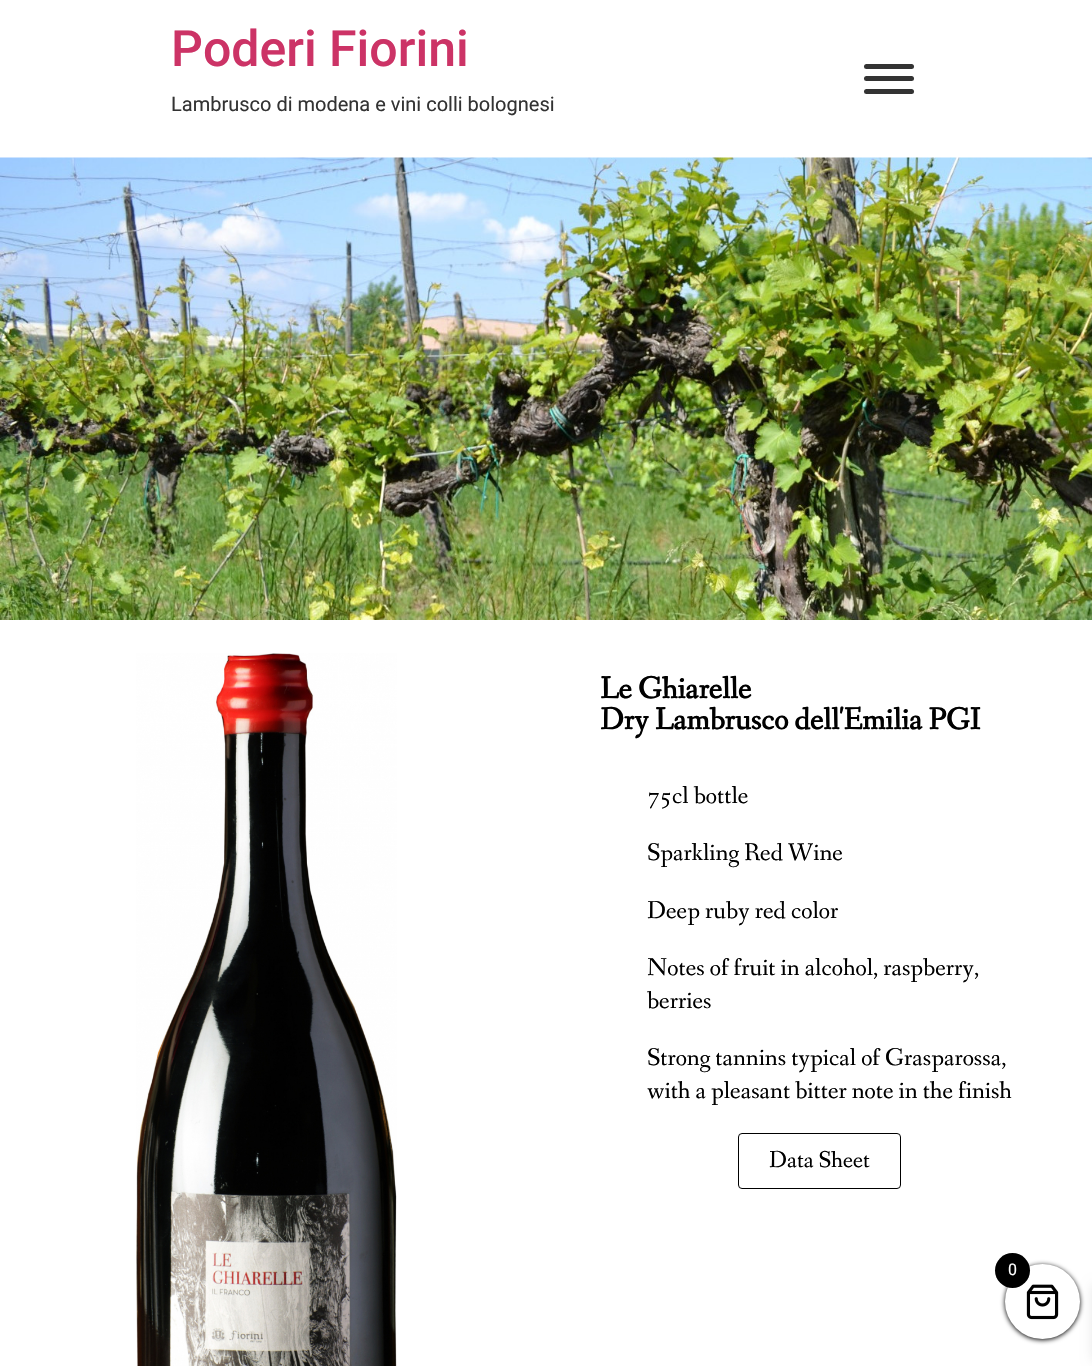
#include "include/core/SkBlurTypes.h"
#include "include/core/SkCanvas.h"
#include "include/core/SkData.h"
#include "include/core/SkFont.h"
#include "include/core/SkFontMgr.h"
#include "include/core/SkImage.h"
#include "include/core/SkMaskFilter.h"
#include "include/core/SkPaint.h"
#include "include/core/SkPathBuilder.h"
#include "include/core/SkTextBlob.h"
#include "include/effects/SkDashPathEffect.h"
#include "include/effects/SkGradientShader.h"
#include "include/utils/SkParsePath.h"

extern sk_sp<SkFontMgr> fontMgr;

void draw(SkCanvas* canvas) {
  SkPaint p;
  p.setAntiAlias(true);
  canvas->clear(SK_ColorWHITE);
  p.setColor(SkColorSetRGB(51, 51, 51));
  canvas->drawRoundRect(SkRect::MakeLTRB(864, 64, 914, 69), 2.5f, 2.5f, p);
  canvas->drawRoundRect(SkRect::MakeLTRB(864, 76, 914, 81), 2.5f, 2.5f, p);
  canvas->drawRoundRect(SkRect::MakeLTRB(864, 89, 914, 94), 2.5f, 2.5f, p);
  canvas->drawImageRect(SkImages::DeferredFromEncodedData(SkData::MakeFromFileName("images/1.png")), SkRect::MakeLTRB(0, 157, 1092, 620), SkSamplingOptions());
  canvas->drawImageRect(SkImages::DeferredFromEncodedData(SkData::MakeFromFileName("images/2.png")), SkRect::MakeLTRB(136, 653, 397, 1366), SkSamplingOptions());
  p.setStyle(SkPaint::kStroke_Style);
  p.setStrokeWidth(1);
  p.setColor(SK_ColorBLACK);
  canvas->drawRoundRect(SkRect::MakeLTRB(738.5f, 1133.5f, 900.5f, 1188.5f), 3.5f, 3.5f, p);
  p.setStyle(SkPaint::kFill_Style);
  p.setMaskFilter(SkMaskFilter::MakeBlur(kNormal_SkBlurStyle, 2.5f));
  canvas->drawRoundRect(SkRect::MakeLTRB(1005, 1265, 1080, 1340), 37.5f, 37.5f, p);
  p.setMaskFilter(nullptr);
  p.setColor(SkColorSetARGB(26, 0, 0, 0));
  p.setMaskFilter(SkMaskFilter::MakeBlur(kNormal_SkBlurStyle, 6));
  canvas->drawRect(SkRect::MakeLTRB(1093, 1285, 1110, 1360), p);
  p.setMaskFilter(nullptr);
  p.setColor(SK_ColorWHITE);
  canvas->drawCircle(1042.5f, 1301.5f, 37.5f, p);
  canvas->drawImageRect(SkImages::DeferredFromEncodedData(SkData::MakeFromFileName("images/3.png")), SkRect::MakeLTRB(1026, 1284, 1059, 1320), SkSamplingOptions());
  p.setColor(SK_ColorBLACK);
  canvas->drawCircle(1012.5f, 1270.5f, 17.5f, p);
  SkFont font1(fontMgr->matchFamilyStyle("Roboto", SkFontStyle(500, SkFontStyle::kNormal_Width, SkFontStyle::kUpright_Slant)), 50);
  font1.setSubpixel(true);
  p.setColor(SkColorSetRGB(204, 51, 102));
  canvas->drawString("Poderi Fiorini", 171, 66, font1, p);
  SkFont font2(fontMgr->matchFamilyStyle("Roboto", SkFontStyle::Normal()), 20);
  font2.setSubpixel(true);
  p.setColor(SkColorSetRGB(51, 51, 51));
  canvas->drawString("Lambrusco di modena e vini colli bolognesi", 171, 111, font2, p);
  SkFont font3(fontMgr->matchFamilyStyle("Fanwood Text", SkFontStyle::Bold()), 31.25f);
  font3.setSubpixel(true);
  p.setColor(SK_ColorBLACK);
  canvas->drawString("Le Ghiarelle", 600, 698, font3, p);
  canvas->drawString("Dry Lambrusco dell'Emilia PGI", 600, 729, font3, p);
  SkFont font4(fontMgr->matchFamilyStyle("Fanwood Text", SkFontStyle::Normal()), 25);
  font4.setSubpixel(true);
  canvas->drawString("75cl bottle", 647, 803, font4, p);
  canvas->drawString("Sparkling Red Wine", 647, 860, font4, p);
  canvas->drawString("Deep ruby red color", 647, 918, font4, p);
  canvas->drawString("Notes of fruit in alcohol, raspberry,", 647, 975, font4, p);
  canvas->drawString("berries", 647, 1008, font4, p);
  canvas->drawString("Strong tannins typical of Grasparossa,", 647, 1065, font4, p);
  canvas->drawString("with a pleasant bitter note in the finish", 647, 1098, font4, p);
  SkFont font5(fontMgr->matchFamilyStyle("Fanwood Text", SkFontStyle::Normal()), 23.75f);
  font5.setSubpixel(true);
  canvas->drawString("Data Sheet", 769, 1167, font5, p);
  SkFont font6(fontMgr->matchFamilyStyle("Roboto", SkFontStyle::Normal()), 16);
  font6.setSubpixel(true);
  p.setColor(SK_ColorWHITE);
  canvas->drawString("0", 1008, 1275, font6, p);
}
